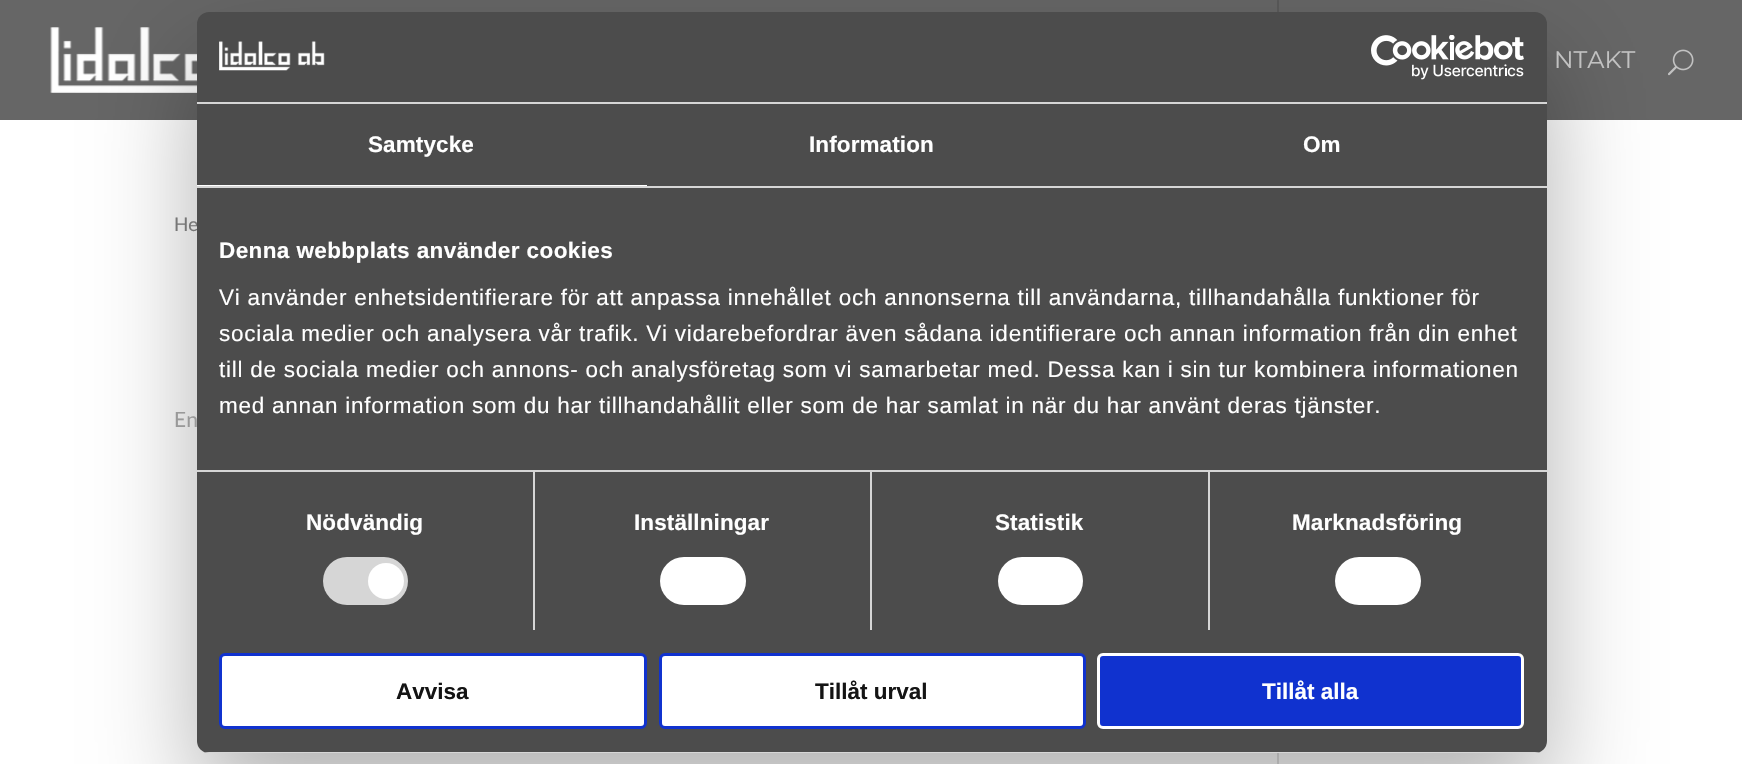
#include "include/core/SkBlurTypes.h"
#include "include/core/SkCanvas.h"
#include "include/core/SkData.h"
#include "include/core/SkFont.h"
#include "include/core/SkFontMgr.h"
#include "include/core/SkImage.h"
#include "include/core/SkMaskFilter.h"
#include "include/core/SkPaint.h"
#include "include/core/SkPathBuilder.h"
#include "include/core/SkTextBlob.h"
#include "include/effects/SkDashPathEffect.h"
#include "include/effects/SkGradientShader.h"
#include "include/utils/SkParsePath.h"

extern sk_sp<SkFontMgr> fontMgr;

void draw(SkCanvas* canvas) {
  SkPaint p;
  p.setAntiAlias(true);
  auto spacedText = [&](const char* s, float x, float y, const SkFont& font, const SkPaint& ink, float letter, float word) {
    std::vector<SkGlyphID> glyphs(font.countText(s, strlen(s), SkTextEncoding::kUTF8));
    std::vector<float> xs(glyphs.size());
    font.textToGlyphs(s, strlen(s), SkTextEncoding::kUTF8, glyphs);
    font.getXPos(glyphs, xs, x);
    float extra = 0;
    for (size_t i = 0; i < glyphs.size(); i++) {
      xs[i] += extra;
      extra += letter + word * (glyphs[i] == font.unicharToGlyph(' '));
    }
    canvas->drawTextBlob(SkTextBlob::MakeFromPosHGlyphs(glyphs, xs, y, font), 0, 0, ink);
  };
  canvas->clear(SK_ColorWHITE);
  p.setColor(SkColorSetRGB(102, 102, 102));
  canvas->drawRect(SkRect::MakeLTRB(0, 0, 1742, 120), p);
  canvas->drawImageRect(SkImages::DeferredFromEncodedData(SkData::MakeFromFileName("images/1.png")), SkRect::MakeLTRB(50, 27, 197, 93), SkSamplingOptions());
  canvas->drawImageRect(SkImages::DeferredFromEncodedData(SkData::MakeFromFileName("images/2.png")), SkRect::MakeLTRB(1668, 49, 1694, 76), SkSamplingOptions());
  p.setColor(SkColorSetRGB(226, 226, 226));
  canvas->drawRect(SkRect::MakeLTRB(1277, 753, 1279, 764), p);
  p.setColor(SkColorSetRGB(90, 90, 90));
  canvas->drawRect(SkRect::MakeLTRB(1277, 0, 1279, 12), p);
  p.setColor(SkColorSetARGB(77, 0, 0, 0));
  p.setMaskFilter(SkMaskFilter::MakeBlur(kNormal_SkBlurStyle, 51));
  canvas->drawRoundRect(SkRect::MakeLTRB(197, 60, 1547, 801), 12, 12, p);
  p.setMaskFilter(nullptr);
  SkFont font1(fontMgr->matchFamilyStyle("Montserrat", SkFontStyle(100, SkFontStyle::kNormal_Width, SkFontStyle::kUpright_Slant)), 24);
  font1.setSubpixel(true);
  p.setColor(SkColorSetRGB(194, 194, 194));
  canvas->drawString("NTAKT", 1554, 68, font1, p);
  SkFont font2(fontMgr->matchFamilyStyle("Lato", SkFontStyle::Normal()), 19);
  font2.setSubpixel(true);
  p.setColor(SkColorSetRGB(118, 118, 118));
  canvas->drawString("He", 174, 231, font2, p);
  SkFont font3(fontMgr->matchFamilyStyle("Lato", SkFontStyle::Normal()), 21);
  font3.setSubpixel(true);
  p.setColor(SkColorSetRGB(153, 153, 153));
  canvas->drawString("En", 174, 427, font3, p);
  p.setColor(SkColorSetRGB(76, 76, 76));
  canvas->drawRoundRect(SkRect::MakeLTRB(197, 12, 1547, 753), 12, 12, p);
  p.setColor(SkColorSetRGB(214, 214, 214));
  canvas->drawRect(SkRect::MakeLTRB(197, 102, 1547, 104), p);
  canvas->drawImageRect(SkImages::DeferredFromEncodedData(SkData::MakeFromFileName("images/3.png")), SkRect::MakeLTRB(219, 41, 325, 71), SkSamplingOptions());
  canvas->drawImageRect(SkImages::DeferredFromEncodedData(SkData::MakeFromFileName("images/4.png")), SkRect::MakeLTRB(1371, 35, 1524, 80), SkSamplingOptions());
  canvas->drawRect(SkRect::MakeLTRB(197, 186, 1547, 188), p);
  p.setColor(SK_ColorWHITE);
  canvas->drawRect(SkRect::MakeLTRB(197, 185, 647, 186), p);
  SkFont font4(fontMgr->matchFamilyStyle("Liberation Sans", SkFontStyle::Bold()), 22.5f);
  font4.setSubpixel(true);
  spacedText("Samtycke", 368, 152, font4, p, 0.1f, 0);
  spacedText("Information", 809, 152, font4, p, 0.1f, 0);
  spacedText("Om", 1303, 152, font4, p, 0.1f, 0);
  spacedText("Denna webbplats använder cookies", 219, 258, font4, p, 0.4f, 0);
  SkFont font5(fontMgr->matchFamilyStyle("Liberation Sans", SkFontStyle::Normal()), 22.5f);
  font5.setSubpixel(true);
  spacedText("Vi använder enhetsidentifierare för att anpassa innehållet och annonserna till användarna, tillhandahålla funktioner för", 219, 305, font5, p, 0.75f, 0);
  spacedText("sociala medier och analysera vår trafik. Vi vidarebefordrar även sådana identifierare och annan information från din enhet", 219, 341, font5, p, 0.75f, 0);
  spacedText("till de sociala medier och annons- och analysföretag som vi samarbetar med. Dessa kan i sin tur kombinera informationen", 219, 377, font5, p, 0.75f, 0);
  spacedText("med annan information som du har tillhandahållit eller som de har samlat in när du har använt deras tjänster.", 219, 413, font5, p, 0.75f, 0);
  p.setColor(SkColorSetRGB(214, 214, 214));
  canvas->drawRect(SkRect::MakeLTRB(533, 471, 535, 630), p);
  p.setColor(SK_ColorWHITE);
  spacedText("Nödvändig", 306, 530, font4, p, 0.1f, 0);
  p.setColor(SkColorSetRGB(214, 214, 214));
  canvas->drawRoundRect(SkRect::MakeLTRB(323, 557, 408, 605), 24, 24, p);
  p.setColor(SK_ColorWHITE);
  canvas->drawCircle(386, 581, 18, p);
  p.setColor(SkColorSetRGB(214, 214, 214));
  canvas->drawRect(SkRect::MakeLTRB(870, 471, 872, 630), p);
  p.setColor(SK_ColorWHITE);
  spacedText("Inställningar", 634, 530, font4, p, 0.1f, 0);
  canvas->drawRoundRect(SkRect::MakeLTRB(660, 557, 746, 605), 24, 24, p);
  p.setColor(SkColorSetRGB(214, 214, 214));
  canvas->drawRect(SkRect::MakeLTRB(1208, 471, 1210, 630), p);
  canvas->drawRect(SkRect::MakeLTRB(197, 470, 1547, 472), p);
  p.setColor(SK_ColorWHITE);
  spacedText("Statistik", 995, 530, font4, p, 0.1f, 0);
  canvas->drawRoundRect(SkRect::MakeLTRB(998, 557, 1083, 605), 24, 24, p);
  spacedText("Marknadsföring", 1292, 530, font4, p, 0.1f, 0);
  canvas->drawRoundRect(SkRect::MakeLTRB(1335, 557, 1421, 605), 24, 24, p);
  canvas->save();
  canvas->clipPath(SkPathBuilder().moveTo(209, 12).lineTo(1535, 12).cubicTo(1541.5f, 12, 1547, 17.5f, 1547, 24).lineTo(1547, 741).cubicTo(1547, 747.5f, 1541.5f, 753, 1535, 753).lineTo(209, 753).cubicTo(202.5f, 753, 197, 747.5f, 197, 741).lineTo(197, 24).cubicTo(197, 17.5f, 202.5f, 12, 209, 12).close().detach(), true);
  p.setColor(SkColorSetRGB(214, 214, 214));
  canvas->drawRect(SkRect::MakeLTRB(197, 752, 1547, 753), p);
  canvas->restore();
  p.setColor(SK_ColorWHITE);
  canvas->drawRoundRect(SkRect::MakeLTRB(220.5f, 654.5f, 645.5f, 727.5f), 4.5f, 4.5f, p);
  p.setStyle(SkPaint::kStroke_Style);
  p.setStrokeWidth(3);
  p.setColor(SkColorSetRGB(16, 50, 207));
  canvas->drawRoundRect(SkRect::MakeLTRB(220.5f, 654.5f, 645.5f, 727.5f), 4.5f, 4.5f, p);
  p.setStyle(SkPaint::kFill_Style);
  p.setColor(SkColorSetRGB(20, 20, 20));
  canvas->drawString("Avvisa", 396, 699, font4, p);
  p.setColor(SK_ColorWHITE);
  canvas->drawRoundRect(SkRect::MakeLTRB(660.5f, 654.5f, 1084.5f, 727.5f), 4.5f, 4.5f, p);
  p.setStyle(SkPaint::kStroke_Style);
  p.setColor(SkColorSetRGB(16, 50, 207));
  canvas->drawRoundRect(SkRect::MakeLTRB(660.5f, 654.5f, 1084.5f, 727.5f), 4.5f, 4.5f, p);
  p.setStyle(SkPaint::kFill_Style);
  p.setColor(SkColorSetRGB(20, 20, 20));
  canvas->drawString("Tillåt urval", 815, 699, font4, p);
  p.setColor(SkColorSetRGB(16, 50, 207));
  canvas->drawRoundRect(SkRect::MakeLTRB(1098.5f, 654.5f, 1522.5f, 727.5f), 4.5f, 4.5f, p);
  p.setStyle(SkPaint::kStroke_Style);
  p.setColor(SK_ColorWHITE);
  canvas->drawRoundRect(SkRect::MakeLTRB(1098.5f, 654.5f, 1522.5f, 727.5f), 4.5f, 4.5f, p);
  p.setStyle(SkPaint::kFill_Style);
  canvas->drawString("Tillåt alla", 1262, 699, font4, p);
}
